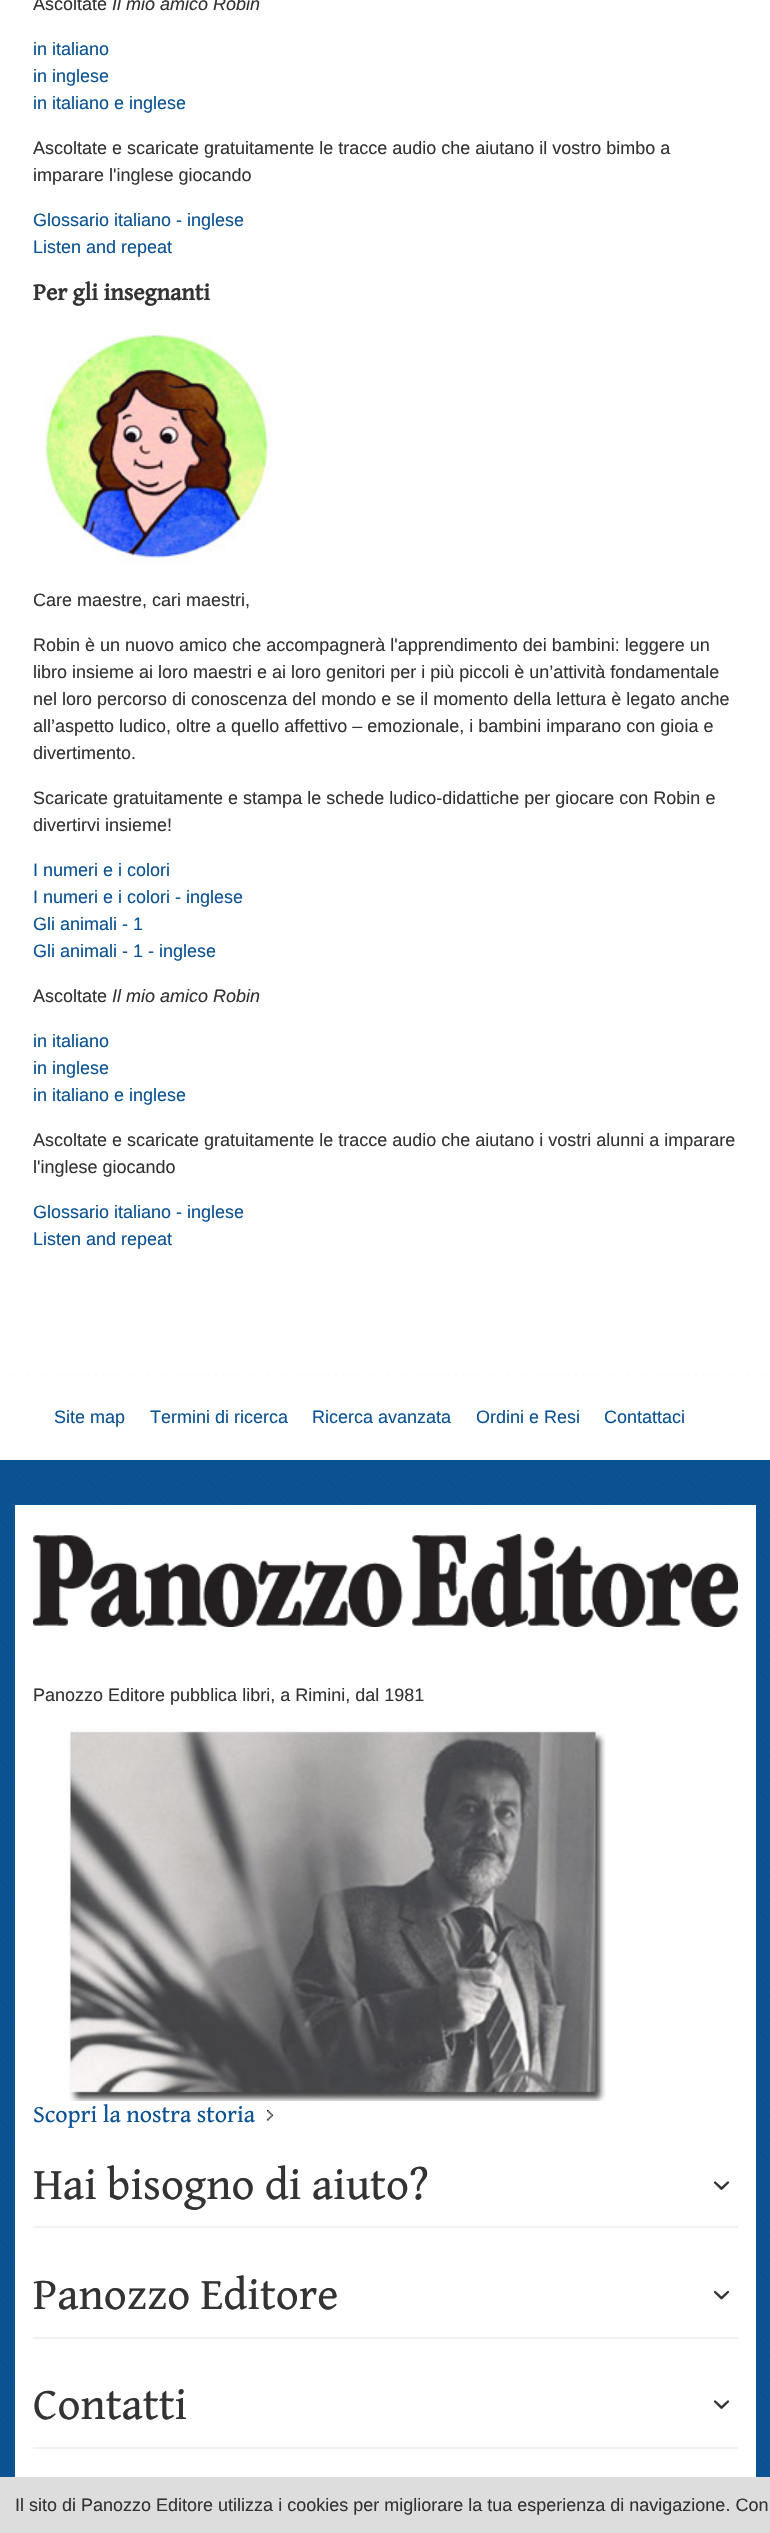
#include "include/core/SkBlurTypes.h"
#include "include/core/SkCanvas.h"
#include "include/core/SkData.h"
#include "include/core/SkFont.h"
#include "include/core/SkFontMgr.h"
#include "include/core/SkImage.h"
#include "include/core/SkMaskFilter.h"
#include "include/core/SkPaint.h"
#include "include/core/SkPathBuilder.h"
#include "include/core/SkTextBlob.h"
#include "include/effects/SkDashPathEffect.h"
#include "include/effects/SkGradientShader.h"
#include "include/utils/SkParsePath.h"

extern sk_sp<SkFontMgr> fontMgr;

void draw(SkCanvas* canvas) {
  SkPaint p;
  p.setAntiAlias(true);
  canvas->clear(SK_ColorWHITE);
  canvas->drawImageRect(SkImages::DeferredFromEncodedData(SkData::MakeFromFileName("images/1.png")), SkRect::MakeLTRB(45, 335, 273, 564), SkSamplingOptions());
  p.setColor(SkColorSetRGB(11, 83, 148));
  canvas->drawRect(SkRect::MakeLTRB(0, 1460, 770, 2477), p);
  canvas->drawImageRect(SkImages::DeferredFromEncodedData(SkData::MakeFromFileName("images/2.png")), SkRect::MakeLTRB(0, 1375, 770, 2477), SkSamplingOptions());
  p.setColor(SK_ColorWHITE);
  canvas->drawRect(SkRect::MakeLTRB(0, 1376, 770, 1460), p);
  canvas->drawRect(SkRect::MakeLTRB(15, 1505, 756, 2477), p);
  canvas->drawImageRect(SkImages::DeferredFromEncodedData(SkData::MakeFromFileName("images/3.png")), SkRect::MakeLTRB(33, 1534, 738, 1627), SkSamplingOptions());
  canvas->drawImageRect(SkImages::DeferredFromEncodedData(SkData::MakeFromFileName("images/4.png")), SkRect::MakeLTRB(69, 1729, 606, 2101), SkSamplingOptions());
  canvas->drawImageRect(SkImages::DeferredFromEncodedData(SkData::MakeFromFileName("images/5.png")), SkRect::MakeLTRB(267, 2110, 273, 2121), SkSamplingOptions());
  p.setColor(SkColorSetRGB(242, 242, 242));
  canvas->drawRect(SkRect::MakeLTRB(33, 2226, 738, 2228), p);
  canvas->drawImageRect(SkImages::DeferredFromEncodedData(SkData::MakeFromFileName("images/6.png")), SkRect::MakeLTRB(713, 2181, 730, 2190), SkSamplingOptions());
  canvas->drawRect(SkRect::MakeLTRB(33, 2337, 738, 2339), p);
  canvas->drawImageRect(SkImages::DeferredFromEncodedData(SkData::MakeFromFileName("images/7.png")), SkRect::MakeLTRB(714, 2290, 730, 2300), SkSamplingOptions());
  canvas->drawRect(SkRect::MakeLTRB(33, 2447, 738, 2449), p);
  canvas->drawImageRect(SkImages::DeferredFromEncodedData(SkData::MakeFromFileName("images/6.png")), SkRect::MakeLTRB(713, 2400, 730, 2409), SkSamplingOptions());
  p.setColor(SkColorSetRGB(221, 221, 221));
  canvas->drawRect(SkRect::MakeLTRB(0, 2477, 770, 2533), p);
  SkFont font1(fontMgr->matchFamilyStyle("Liberation Sans", SkFontStyle::Normal()), 18);
  font1.setSubpixel(true);
  p.setColor(SkColorSetRGB(51, 51, 51));
  canvas->drawString("Ascoltate", 33, 10, font1, p);
  SkFont font2(fontMgr->matchFamilyStyle("Liberation Sans", SkFontStyle::Italic()), 18);
  font2.setSubpixel(true);
  canvas->drawString("Il mio amico Robin", 112, 10, font2, p);
  p.setColor(SkColorSetRGB(11, 83, 148));
  canvas->drawString("in italiano", 33, 55, font1, p);
  canvas->drawString("in inglese", 33, 82, font1, p);
  canvas->drawString("in italiano e inglese", 33, 109, font1, p);
  p.setColor(SkColorSetRGB(51, 51, 51));
  canvas->drawString("Ascoltate e scaricate gratuitamente le tracce audio che aiutano il vostro bimbo a", 33, 154, font1, p);
  canvas->drawString("imparare l'inglese giocando", 33, 181, font1, p);
  p.setColor(SkColorSetRGB(11, 83, 148));
  canvas->drawString("Glossario italiano - inglese", 33, 226, font1, p);
  canvas->drawString("Listen and repeat", 33, 253, font1, p);
  SkFont font3(fontMgr->matchFamilyStyle("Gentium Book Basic", SkFontStyle::Bold()), 24);
  font3.setSubpixel(true);
  p.setColor(SkColorSetRGB(51, 51, 51));
  canvas->drawString("Per gli insegnanti", 33, 300, font3, p);
  canvas->drawString("Care maestre, cari maestri,", 33, 606, font1, p);
  canvas->drawString("Robin è un nuovo amico che accompagnerà l'apprendimento dei bambini: leggere un", 33, 651, font1, p);
  canvas->drawString("libro insieme ai loro maestri e ai loro genitori per i più piccoli è un’attività fondamentale", 33, 678, font1, p);
  canvas->drawString("nel loro percorso di conoscenza del mondo e se il momento della lettura è legato anche", 33, 705, font1, p);
  canvas->drawString("all’aspetto ludico, oltre a quello affettivo – emozionale, i bambini imparano con gioia e", 33, 732, font1, p);
  canvas->drawString("divertimento.", 33, 759, font1, p);
  canvas->drawString("Scaricate gratuitamente e stampa le schede ludico-didattiche per giocare con Robin e", 33, 804, font1, p);
  canvas->drawString("divertirvi insieme!", 33, 831, font1, p);
  p.setColor(SkColorSetRGB(11, 83, 148));
  canvas->drawString("I numeri e i colori", 33, 876, font1, p);
  canvas->drawString("I numeri e i colori - inglese", 33, 903, font1, p);
  canvas->drawString("Gli animali - 1", 33, 930, font1, p);
  canvas->drawString("Gli animali - 1 - inglese", 33, 957, font1, p);
  p.setColor(SkColorSetRGB(51, 51, 51));
  canvas->drawString("Ascoltate", 33, 1002, font1, p);
  canvas->drawString("Il mio amico Robin", 112, 1002, font2, p);
  p.setColor(SkColorSetRGB(11, 83, 148));
  canvas->drawString("in italiano", 33, 1047, font1, p);
  canvas->drawString("in inglese", 33, 1074, font1, p);
  canvas->drawString("in italiano e inglese", 33, 1101, font1, p);
  p.setColor(SkColorSetRGB(51, 51, 51));
  canvas->drawString("Ascoltate e scaricate gratuitamente le tracce audio che aiutano i vostri alunni a imparare", 33, 1146, font1, p);
  canvas->drawString("l'inglese giocando", 33, 1173, font1, p);
  p.setColor(SkColorSetRGB(11, 83, 148));
  canvas->drawString("Glossario italiano - inglese", 33, 1218, font1, p);
  canvas->drawString("Listen and repeat", 33, 1245, font1, p);
  canvas->drawString("Site map", 54, 1423, font1, p);
  canvas->drawString("Termini di ricerca", 150, 1423, font1, p);
  canvas->drawString("Ricerca avanzata", 312, 1423, font1, p);
  canvas->drawString("Ordini e Resi", 476, 1423, font1, p);
  canvas->drawString("Contattaci", 604, 1423, font1, p);
  p.setColor(SkColorSetRGB(51, 51, 51));
  canvas->drawString("Panozzo Editore pubblica libri, a Rimini, dal 1981", 33, 1701, font1, p);
  SkFont font4(fontMgr->matchFamilyStyle("Gentium Book Basic", SkFontStyle::Normal()), 24);
  font4.setSubpixel(true);
  p.setColor(SkColorSetRGB(11, 83, 148));
  canvas->drawString("Scopri la nostra storia", 33, 2122, font4, p);
  SkFont font5(fontMgr->matchFamilyStyle("Gentium Book Basic", SkFontStyle::Normal()), 45);
  font5.setSubpixel(true);
  p.setColor(SkColorSetRGB(51, 51, 51));
  canvas->drawString("Hai bisogno di aiuto?", 33, 2199, font5, p);
  canvas->drawString("Panozzo Editore", 33, 2309, font5, p);
  canvas->drawString("Contatti", 33, 2419, font5, p);
  canvas->drawString("Il sito di Panozzo Editore utilizza i cookies per migliorare la tua esperienza di navigazione. Con", 15, 2511, font1, p);
}
